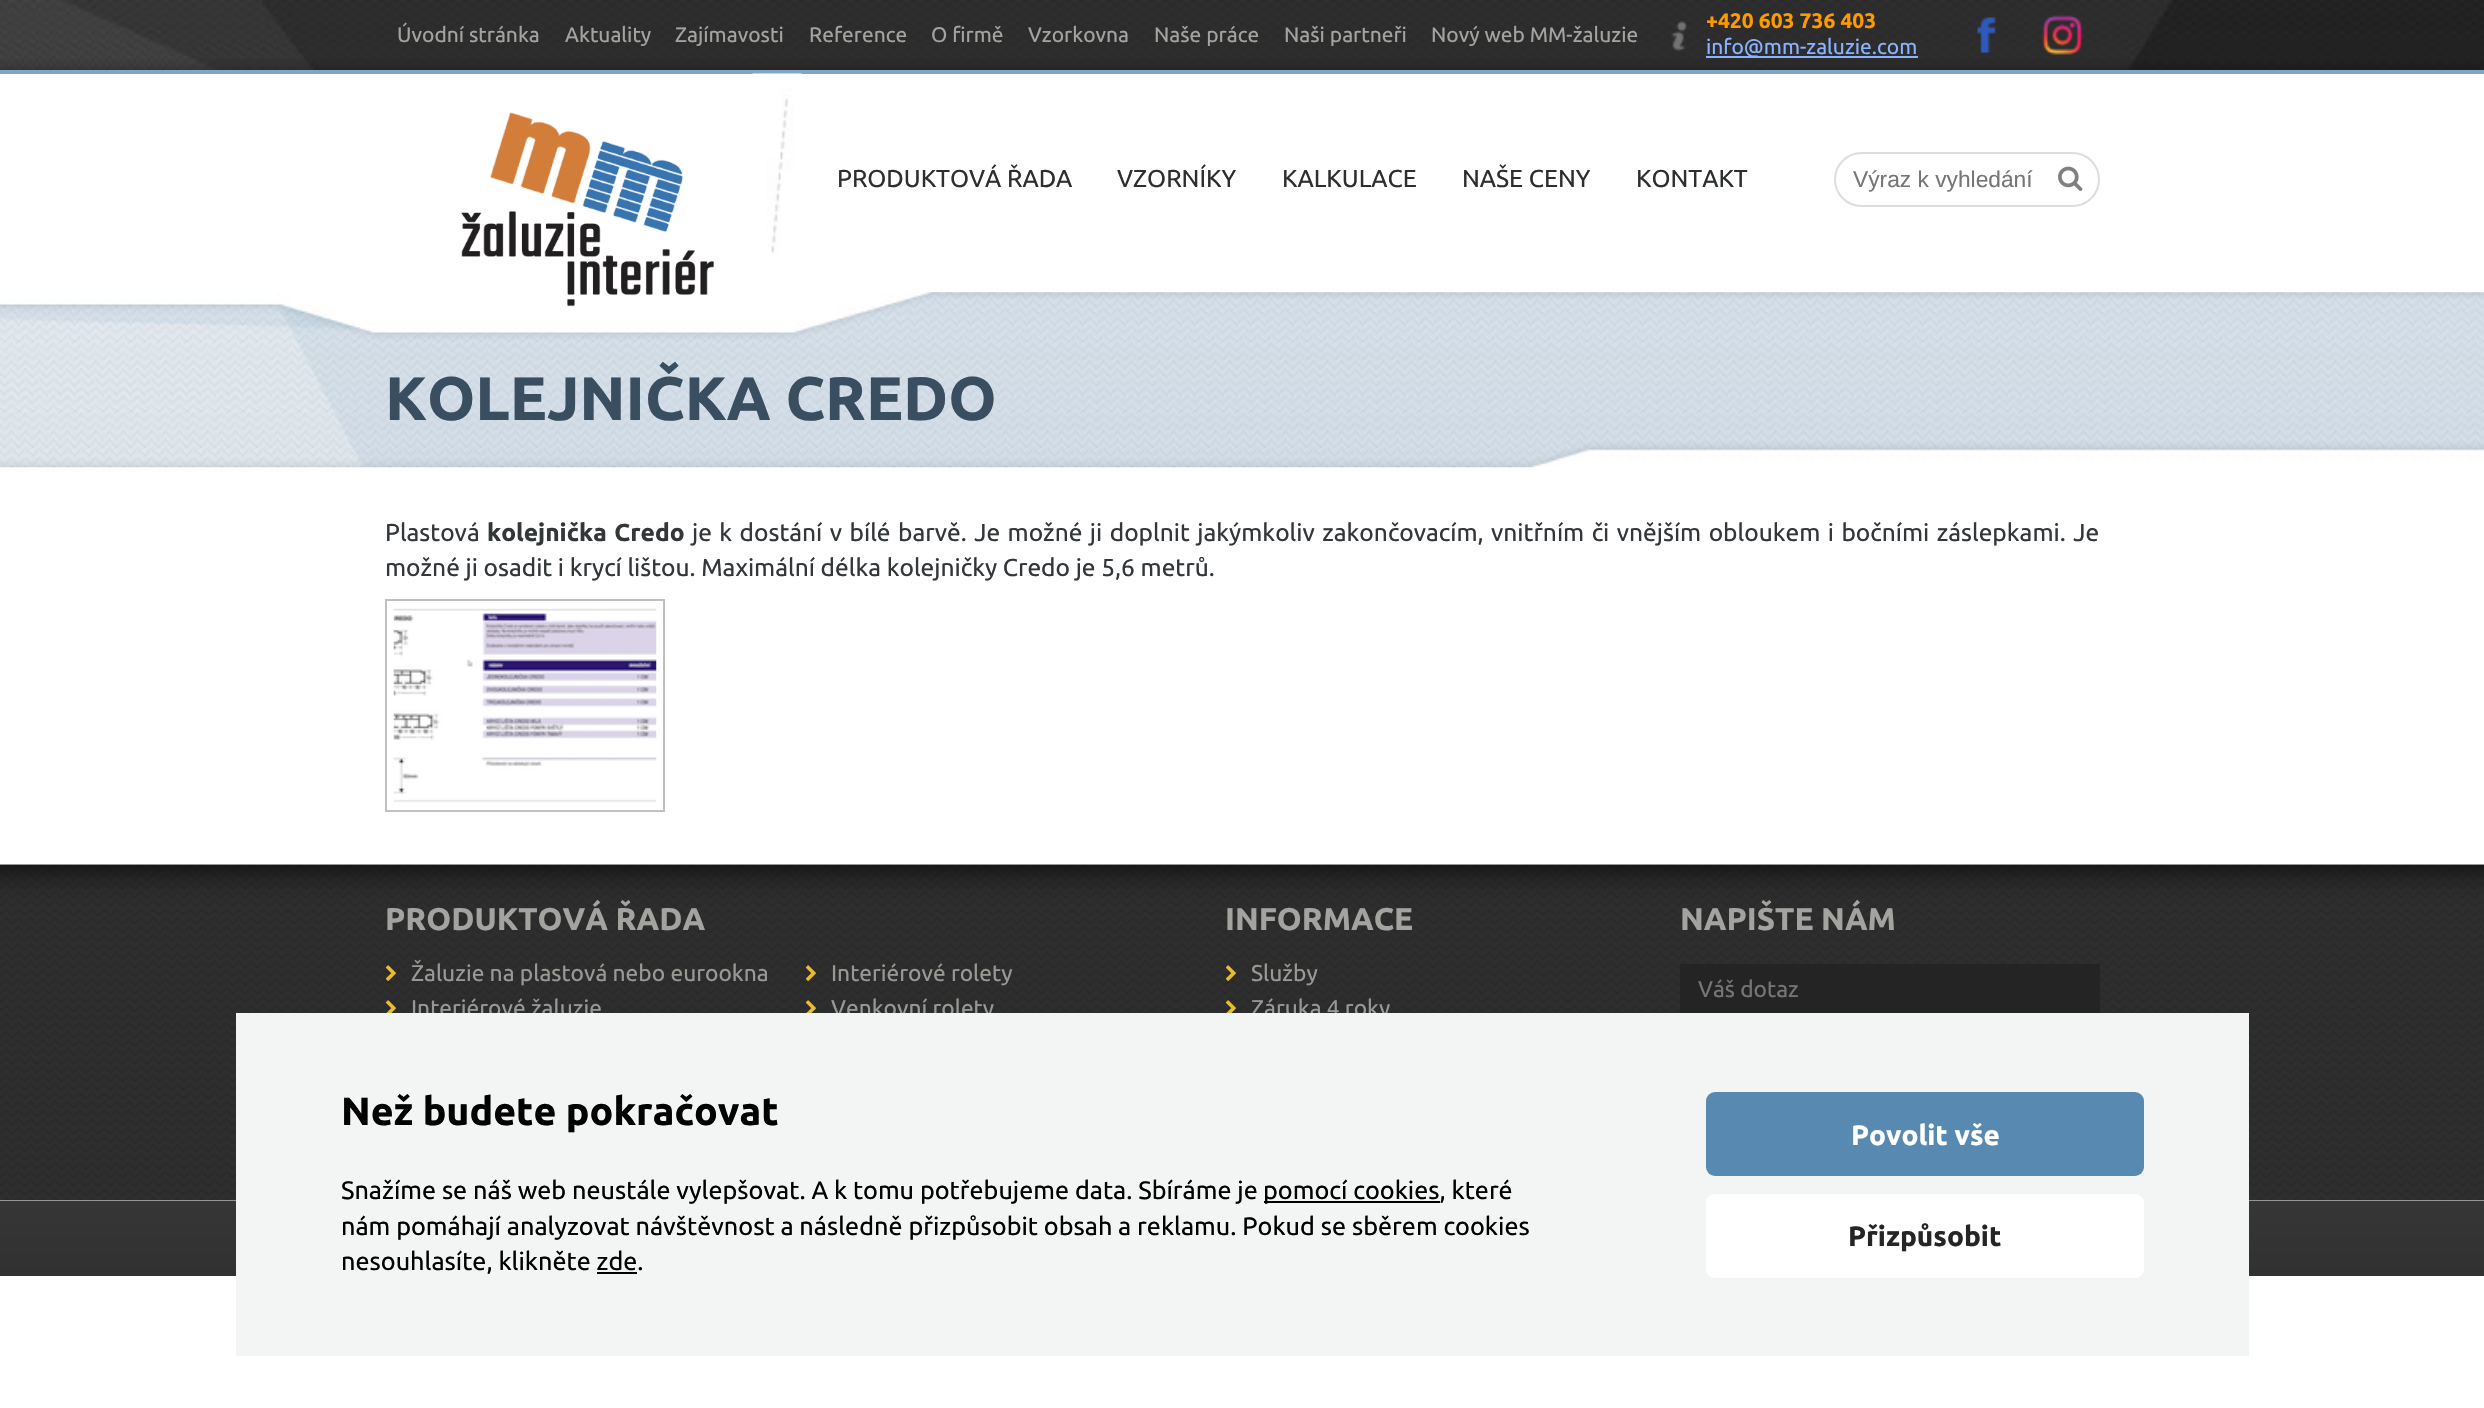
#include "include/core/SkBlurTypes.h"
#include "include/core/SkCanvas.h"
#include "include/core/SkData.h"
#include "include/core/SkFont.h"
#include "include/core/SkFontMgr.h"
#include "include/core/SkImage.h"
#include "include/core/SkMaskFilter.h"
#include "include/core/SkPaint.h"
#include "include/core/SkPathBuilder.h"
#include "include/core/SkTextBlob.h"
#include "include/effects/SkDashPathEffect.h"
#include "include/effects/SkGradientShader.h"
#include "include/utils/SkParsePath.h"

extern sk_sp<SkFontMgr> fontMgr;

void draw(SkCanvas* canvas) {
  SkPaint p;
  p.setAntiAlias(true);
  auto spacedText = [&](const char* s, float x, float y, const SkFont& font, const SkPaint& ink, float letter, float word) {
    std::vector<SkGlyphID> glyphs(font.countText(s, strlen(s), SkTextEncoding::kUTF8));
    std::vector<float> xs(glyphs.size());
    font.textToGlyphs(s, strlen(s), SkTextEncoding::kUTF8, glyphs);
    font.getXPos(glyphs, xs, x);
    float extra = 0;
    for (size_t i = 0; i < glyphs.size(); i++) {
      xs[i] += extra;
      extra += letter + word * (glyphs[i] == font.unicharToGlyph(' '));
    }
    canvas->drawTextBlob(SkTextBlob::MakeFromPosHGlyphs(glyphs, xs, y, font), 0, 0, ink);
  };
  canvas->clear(SK_ColorWHITE);
  canvas->drawImageRect(SkImages::DeferredFromEncodedData(SkData::MakeFromFileName("images/1.png")), SkRect::MakeLTRB(0, 0, 2484, 70), SkSamplingOptions());
  p.setColor(SkColorSetRGB(127, 166, 194));
  canvas->drawRect(SkRect::MakeLTRB(0, 70, 2484, 74), p);
  canvas->drawImageRect(SkImages::DeferredFromEncodedData(SkData::MakeFromFileName("images/2.png")), SkRect::MakeLTRB(1671, 21, 1687, 51), SkSamplingOptions());
  p.setColor(SkColorSetRGB(137, 178, 255));
  canvas->drawRect(SkRect::MakeLTRB(1706, 56, 1918, 58), p);
  canvas->drawImageRect(SkImages::DeferredFromEncodedData(SkData::MakeFromFileName("images/3.png")), SkRect::MakeLTRB(1977, 17, 1996, 53), SkSamplingOptions());
  canvas->drawImageRect(SkImages::DeferredFromEncodedData(SkData::MakeFromFileName("images/4.png")), SkRect::MakeLTRB(2042, 15, 2083, 55), SkSamplingOptions());
  canvas->drawImageRect(SkImages::DeferredFromEncodedData(SkData::MakeFromFileName("images/5.png")), SkRect::MakeLTRB(752, 73, 802, 254), SkSamplingOptions());
  canvas->drawImageRect(SkImages::DeferredFromEncodedData(SkData::MakeFromFileName("images/8.png")), SkRect::MakeLTRB(0, 292, 2484, 468), SkSamplingOptions());
  canvas->drawImageRect(SkImages::DeferredFromEncodedData(SkData::MakeFromFileName("images/6.png")), SkRect::MakeLTRB(461, 112, 714, 307), SkSamplingOptions());
  p.setStyle(SkPaint::kStroke_Style);
  p.setStrokeWidth(2);
  p.setColor(SkColorSetRGB(221, 221, 221));
  canvas->drawRoundRect(SkRect::MakeLTRB(1835, 153, 2099, 206), 26.5f, 26.5f, p);
  canvas->drawImageRect(SkImages::DeferredFromEncodedData(SkData::MakeFromFileName("images/7.png")), SkRect::MakeLTRB(2058, 166, 2083, 191), SkSamplingOptions());
  p.setColor(SkColorSetRGB(192, 192, 192));
  canvas->drawRect(SkRect::MakeLTRB(386, 600, 664, 811), p);
  canvas->drawImageRect(SkImages::DeferredFromEncodedData(SkData::MakeFromFileName("images/9.png")), SkRect::MakeLTRB(393, 608, 657, 802), SkSamplingOptions());
  canvas->drawImageRect(SkImages::DeferredFromEncodedData(SkData::MakeFromFileName("images/10.png")), SkRect::MakeLTRB(0, 864, 2484, 1201), SkSamplingOptions());
  canvas->save();
  canvas->clipRect(SkRect::MakeLTRB(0, 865, 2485, 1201));
  p.setStyle(SkPaint::kFill_Style);
  p.setColor(SK_ColorBLACK);
  p.setMaskFilter(SkMaskFilter::MakeBlur(kNormal_SkBlurStyle, 17.5f));
  canvas->drawRect(SkRect::MakeLTRB(-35, 830, 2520, 865), p);
  p.setMaskFilter(nullptr);
  canvas->restore();
  canvas->drawImageRect(SkImages::DeferredFromEncodedData(SkData::MakeFromFileName("images/11.png")), SkRect::MakeLTRB(385, 965, 396, 981), SkSamplingOptions());
  canvas->drawImageRect(SkImages::DeferredFromEncodedData(SkData::MakeFromFileName("images/12.png")), SkRect::MakeLTRB(805, 965, 816, 981), SkSamplingOptions());
  canvas->drawImageRect(SkImages::DeferredFromEncodedData(SkData::MakeFromFileName("images/13.png")), SkRect::MakeLTRB(385, 1000, 396, 1013), SkSamplingOptions());
  canvas->drawImageRect(SkImages::DeferredFromEncodedData(SkData::MakeFromFileName("images/14.png")), SkRect::MakeLTRB(805, 1000, 816, 1013), SkSamplingOptions());
  canvas->drawImageRect(SkImages::DeferredFromEncodedData(SkData::MakeFromFileName("images/15.png")), SkRect::MakeLTRB(1225, 965, 1236, 981), SkSamplingOptions());
  canvas->drawImageRect(SkImages::DeferredFromEncodedData(SkData::MakeFromFileName("images/16.png")), SkRect::MakeLTRB(1225, 1000, 1236, 1013), SkSamplingOptions());
  p.setColor(SkColorSetRGB(36, 36, 36));
  canvas->drawRect(SkRect::MakeLTRB(1680, 964, 2100, 1013), p);
  {
    const SkColor colors[] = {SkColorSetRGB(54, 54, 54), SkColorSetRGB(49, 49, 49)};
    const float stops[] = {0, 1};
    const SkPoint ends[] = {{1243, 1200}, {1243, 1276}};
    p.setShader(SkGradientShader::MakeLinear(ends, colors, stops, 2, SkTileMode::kClamp));
    p.setAlpha(255);
  }
  canvas->drawRect(SkRect::MakeLTRB(0, 1201, 2484, 1276), p);
  SkFont font1(fontMgr->matchFamilyStyle("Ubuntu", SkFontStyle::Normal()), 21);
  font1.setSubpixel(true);
  p.setShader(nullptr);
  p.setColor(SkColorSetRGB(163, 163, 160));
  canvas->drawString("Úvodní stránka", 397, 42, font1, p);
  canvas->drawString("Aktuality", 565, 42, font1, p);
  canvas->drawString("Zajímavosti", 675, 42, font1, p);
  canvas->drawString("Reference", 809, 42, font1, p);
  canvas->drawString("O firmě", 931, 42, font1, p);
  canvas->drawString("Vzorkovna", 1028, 42, font1, p);
  canvas->drawString("Naše práce", 1154, 42, font1, p);
  canvas->drawString("Naši partneři", 1284, 42, font1, p);
  canvas->drawString("Nový web MM-žaluzie", 1431, 42, font1, p);
  SkFont font2(fontMgr->matchFamilyStyle("Ubuntu", SkFontStyle::Bold()), 21);
  font2.setSubpixel(true);
  p.setColor(SkColorSetRGB(255, 153, 0));
  canvas->drawString("+420 603 736 403", 1706, 28, font2, p);
  p.setColor(SkColorSetRGB(137, 178, 255));
  canvas->drawString("info@mm-zaluzie.com", 1706, 54, font1, p);
  SkFont font3(fontMgr->matchFamilyStyle("Ubuntu", SkFontStyle::Normal()), 24.5f);
  font3.setSubpixel(true);
  p.setColor(SkColorSetRGB(44, 46, 47));
  canvas->drawString("PRODUKTOVÁ ŘADA", 837, 187, font3, p);
  canvas->drawString("VZORNÍKY", 1117, 187, font3, p);
  canvas->drawString("KALKULACE", 1282, 187, font3, p);
  canvas->drawString("NAŠE CENY", 1462, 187, font3, p);
  canvas->drawString("KONTAKT", 1636, 187, font3, p);
  SkFont font4(fontMgr->matchFamilyStyle("Liberation Sans", SkFontStyle::Normal()), 22.75f);
  font4.setSubpixel(true);
  p.setColor(SkColorSetRGB(117, 117, 117));
  canvas->drawString("Výraz k vyhledání", 1853, 187, font4, p);
  SkFont font5(fontMgr->matchFamilyStyle("Ubuntu", SkFontStyle::Bold()), 61.25f);
  font5.setSubpixel(true);
  p.setColor(SkColorSetRGB(57, 78, 95));
  canvas->drawString("KOLEJNIČKA CREDO", 385, 420, font5, p);
  p.setColor(SkColorSetRGB(51, 55, 57));
  canvas->drawString("Plastová", 385, 541, font3, p);
  SkFont font6(fontMgr->matchFamilyStyle("Ubuntu", SkFontStyle::Bold()), 24.5f);
  font6.setSubpixel(true);
  spacedText("kolejnička Credo", 487, 541, font6, p, 0, 1.8f);
  spacedText("je k dostání v bílé barvě. Je možné ji doplnit jakýmkoliv zakončovacím, vnitřním či vnějším obloukem i bočními záslepkami. Je", 692, 541, font3, p, 0, 1.8f);
  canvas->drawString("možné ji osadit i krycí lištou. Maximální délka kolejničky Credo je 5,6 metrů.", 385, 576, font3, p);
  SkFont font7(fontMgr->matchFamilyStyle("Ubuntu", SkFontStyle::Bold()), 31.5f);
  font7.setSubpixel(true);
  p.setColor(SkColorSetRGB(163, 163, 160));
  canvas->drawString("PRODUKTOVÁ ŘADA", 385, 930, font7, p);
  SkFont font8(fontMgr->matchFamilyStyle("Ubuntu", SkFontStyle::Normal()), 22.75f);
  font8.setSubpixel(true);
  p.setColor(SkColorSetRGB(152, 152, 148));
  canvas->drawString("Žaluzie na plastová nebo eurookna", 411, 981, font8, p);
  canvas->drawString("Interiérové rolety", 831, 981, font8, p);
  canvas->drawString("Interiérové žaluzie", 411, 1016, font8, p);
  canvas->drawString("Venkovní rolety", 831, 1016, font8, p);
  p.setColor(SkColorSetRGB(163, 163, 160));
  canvas->drawString("INFORMACE", 1225, 930, font7, p);
  p.setColor(SkColorSetRGB(152, 152, 148));
  canvas->drawString("Služby", 1251, 981, font8, p);
  canvas->drawString("Záruka 4 roky", 1251, 1016, font8, p);
  p.setColor(SkColorSetRGB(163, 163, 160));
  canvas->drawString("NAPIŠTE NÁM", 1680, 930, font7, p);
  p.setColor(SkColorSetRGB(117, 117, 117));
  canvas->drawString("Váš dotaz", 1698, 997, font8, p);
  p.setColor(SkColorSetRGB(243, 245, 245));
  canvas->drawRect(SkRect::MakeLTRB(236, 1013, 2249, 1356), p);
  SkFont font9(fontMgr->matchFamilyStyle("Ubuntu", SkFontStyle::Bold()), 39.25f);
  font9.setSubpixel(true);
  p.setColor(SK_ColorBLACK);
  canvas->drawString("Než budete pokračovat", 341, 1125, font9, p);
  SkFont font10(fontMgr->matchFamilyStyle("Ubuntu", SkFontStyle::Normal()), 25.2f);
  font10.setSubpixel(true);
  canvas->drawString("Snažíme se náš web neustále vylepšovat. A k tomu potřebujeme data. Sbíráme je", 341, 1199, font10, p);
  canvas->drawRect(SkRect::MakeLTRB(1264, 1201, 1440, 1203), p);
  canvas->drawString("pomocí cookies, které", 1263, 1199, font10, p);
  canvas->drawString("nám pomáhají analyzovat návštěvnost a následně přizpůsobit obsah a reklamu. Pokud se sběrem cookies", 341, 1235, font10, p);
  canvas->drawString("nesouhlasíte, klikněte zde.", 341, 1270, font10, p);
  canvas->drawRect(SkRect::MakeLTRB(597, 1272, 637, 1274), p);
  p.setColor(SkColorSetRGB(88, 138, 177));
  canvas->drawRoundRect(SkRect::MakeLTRB(1706, 1092, 2144, 1176), 9, 9, p);
  SkFont font11(fontMgr->matchFamilyStyle("Ubuntu", SkFontStyle::Bold()), 28);
  font11.setSubpixel(true);
  p.setColor(SK_ColorWHITE);
  canvas->drawString("Povolit vše", 1851, 1145, font11, p);
  canvas->drawRoundRect(SkRect::MakeLTRB(1706, 1194, 2144, 1278), 9, 9, p);
  p.setColor(SkColorSetRGB(37, 37, 37));
  canvas->drawString("Přizpůsobit", 1848, 1246, font11, p);
}
